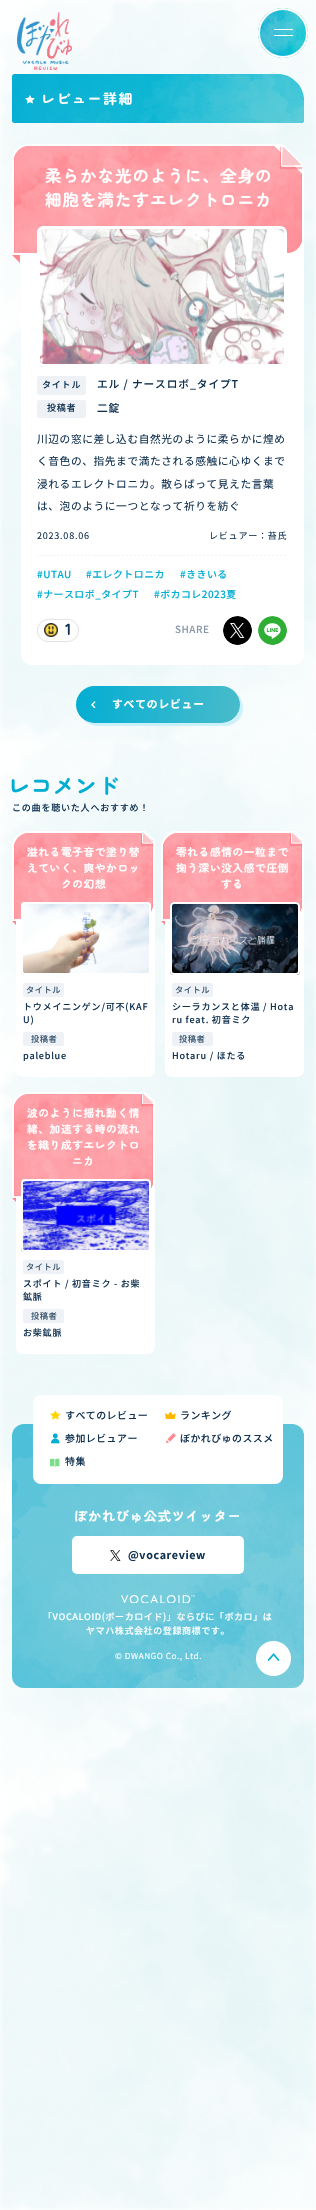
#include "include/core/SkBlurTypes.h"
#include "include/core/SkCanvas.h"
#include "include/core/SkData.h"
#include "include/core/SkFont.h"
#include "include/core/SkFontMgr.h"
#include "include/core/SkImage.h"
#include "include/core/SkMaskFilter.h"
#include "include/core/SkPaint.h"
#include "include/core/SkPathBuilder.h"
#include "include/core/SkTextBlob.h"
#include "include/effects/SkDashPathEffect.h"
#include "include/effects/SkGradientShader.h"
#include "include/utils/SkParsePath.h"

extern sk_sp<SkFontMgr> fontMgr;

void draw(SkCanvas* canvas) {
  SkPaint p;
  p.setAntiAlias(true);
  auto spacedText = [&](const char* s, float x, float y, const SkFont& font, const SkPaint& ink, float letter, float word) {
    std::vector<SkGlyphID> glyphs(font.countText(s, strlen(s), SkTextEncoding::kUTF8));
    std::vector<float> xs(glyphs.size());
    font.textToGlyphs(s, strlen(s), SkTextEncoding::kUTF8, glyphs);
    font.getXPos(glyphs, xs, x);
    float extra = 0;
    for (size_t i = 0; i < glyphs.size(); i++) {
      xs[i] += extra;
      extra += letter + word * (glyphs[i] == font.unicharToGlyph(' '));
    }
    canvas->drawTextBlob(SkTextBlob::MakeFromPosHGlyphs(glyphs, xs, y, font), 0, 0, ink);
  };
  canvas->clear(SK_ColorWHITE);
  canvas->drawImageRect(SkImages::DeferredFromEncodedData(SkData::MakeFromFileName("images/1.png")), SkRect::MakeLTRB(0, 0, 316, 2210), SkSamplingOptions());
  canvas->drawImageRect(SkImages::DeferredFromEncodedData(SkData::MakeFromFileName("images/2.png")), SkRect::MakeLTRB(17, 12, 72, 70), SkSamplingOptions());
  {
    const SkColor colors[] = {SkColorSetRGB(0, 173, 211), SkColorSetRGB(0, 199, 211)};
    const float stops[] = {0.24f, 0.94f};
    const SkPoint ends[] = {{258, 33}, {308, 33}};
    p.setShader(SkGradientShader::MakeLinear(ends, colors, stops, 2, SkTileMode::kClamp));
    p.setAlpha(255);
  }
  canvas->drawCircle(283, 33, 25, p);
  canvas->drawImageRect(SkImages::DeferredFromEncodedData(SkData::MakeFromFileName("images/3.png")), SkRect::MakeLTRB(258, 8, 307, 57), SkSamplingOptions());
  p.setShader(nullptr);
  p.setColor(SK_ColorWHITE);
  canvas->drawRoundRect(SkRect::MakeLTRB(274, 35, 293, 36), 0.5f, 0.5f, p);
  canvas->drawRoundRect(SkRect::MakeLTRB(274, 29, 293, 30), 0.5f, 0.5f, p);
  p.setStyle(SkPaint::kStroke_Style);
  p.setStrokeWidth(2);
  canvas->drawCircle(283, 33, 24, p);
  p.setStyle(SkPaint::kFill_Style);
  {
    const SkColor colors[] = {SkColorSetRGB(0, 173, 211), SkColorSetRGB(0, 186, 211)};
    const float stops[] = {0, 1};
    const SkPoint ends[] = {{12, 98}, {304, 99}};
    p.setShader(SkGradientShader::MakeLinear(ends, colors, stops, 2, SkTileMode::kClamp));
    p.setAlpha(255);
  }
  canvas->drawPath(SkPathBuilder().moveTo(14.5f, 74).lineTo(277, 74).cubicTo(292, 74, 304, 86, 304, 101).lineTo(304, 120.5f).cubicTo(304, 122, 303, 123, 301.5f, 123).lineTo(14.5f, 123).cubicTo(13, 123, 12, 122, 12, 120.5f).lineTo(12, 76.5f).cubicTo(12, 75, 13, 74, 14.5f, 74).close().detach(), p);
  canvas->drawImageRect(SkImages::DeferredFromEncodedData(SkData::MakeFromFileName("images/4.png")), SkRect::MakeLTRB(12, 74, 304, 123), SkSamplingOptions());
  canvas->drawImageRect(SkImages::DeferredFromEncodedData(SkData::MakeFromFileName("images/5.png")), SkRect::MakeLTRB(25, 95, 35, 104), SkSamplingOptions());
  p.setShader(nullptr);
  p.setColor(SK_ColorWHITE);
  canvas->drawRoundRect(SkRect::MakeLTRB(21, 208, 304, 665), 10, 10, p);
  canvas->drawPath(SkPathBuilder().moveTo(28, 144).cubicTo(20, 144, 14, 149, 12, 157).lineTo(12, 255).lineTo(288, 255).cubicTo(296, 255, 302, 250, 304, 242).lineTo(304, 165).lineTo(283, 144).close().detach(), p);
  p.setColor(SkColorSetRGB(255, 132, 142));
  canvas->drawPath(SkPathBuilder().moveTo(14, 158).cubicTo(16, 151, 21, 147, 28, 146).lineTo(274, 146).lineTo(302, 174).lineTo(302, 241).cubicTo(300, 248, 294, 253, 287, 253).lineTo(14, 253).close().detach(), p);
  canvas->drawImageRect(SkImages::DeferredFromEncodedData(SkData::MakeFromFileName("images/7.png")), SkRect::MakeLTRB(14, 146, 302, 253), SkSamplingOptions());
  canvas->save();
  canvas->clipPath(SkPathBuilder(SkPathFillType::kEvenOdd).moveTo(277, 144).lineTo(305, 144).lineTo(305, 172).lineTo(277, 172).close().moveTo(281, 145).lineTo(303, 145).lineTo(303, 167).lineTo(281, 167).close().detach(), true);
  p.setColor(SkColorSetARGB(128, 247, 108, 119));
  p.setMaskFilter(SkMaskFilter::MakeBlur(kNormal_SkBlurStyle, 0.5f));
  canvas->drawRect(SkRect::MakeLTRB(280, 147, 302, 169), p);
  p.setMaskFilter(nullptr);
  canvas->restore();
  canvas->drawImageRect(SkImages::DeferredFromEncodedData(SkData::MakeFromFileName("images/6.png")), SkRect::MakeLTRB(281, 147, 301, 167), SkSamplingOptions());
  p.setColor(SkColorSetRGB(255, 135, 144));
  canvas->drawPath(SkPathBuilder().moveTo(20, 255).lineTo(20, 263).lineTo(12, 255).close().detach(), p);
  canvas->drawImageRect(SkImages::DeferredFromEncodedData(SkData::MakeFromFileName("images/8.png")), SkRect::MakeLTRB(37, 226, 287, 367), SkSamplingOptions());
  p.setStyle(SkPaint::kStroke_Style);
  p.setStrokeWidth(3);
  p.setColor(SK_ColorWHITE);
  canvas->drawRoundRect(SkRect::MakeLTRB(38.5f, 227.5f, 285.5f, 365.5f), 5.5f, 5.5f, p);
  p.setStyle(SkPaint::kFill_Style);
  p.setColor(SkColorSetRGB(238, 242, 246));
  canvas->drawRoundRect(SkRect::MakeLTRB(37, 376, 86, 395), 2.5f, 2.5f, p);
  canvas->drawRoundRect(SkRect::MakeLTRB(37, 400, 86, 418), 2.5f, 2.5f, p);
  canvas->drawImageRect(SkImages::DeferredFromEncodedData(SkData::MakeFromFileName("images/9.png")), SkRect::MakeLTRB(37, 555, 286, 556), SkSamplingOptions());
  p.setStyle(SkPaint::kStroke_Style);
  p.setStrokeWidth(0.8f);
  p.setColor(SkColorSetRGB(216, 216, 216));
  canvas->drawRoundRect(SkRect::MakeLTRB(37.4f, 619.4f, 78.6f, 641.6f), 11.1f, 11.1f, p);
  canvas->drawImageRect(SkImages::DeferredFromEncodedData(SkData::MakeFromFileName("images/10.png")), SkRect::MakeLTRB(44, 623, 58, 637), SkSamplingOptions());
  canvas->drawImageRect(SkImages::DeferredFromEncodedData(SkData::MakeFromFileName("images/11.png")), SkRect::MakeLTRB(223, 616, 252, 645), SkSamplingOptions());
  canvas->drawImageRect(SkImages::DeferredFromEncodedData(SkData::MakeFromFileName("images/12.png")), SkRect::MakeLTRB(258, 616, 287, 645), SkSamplingOptions());
  p.setStyle(SkPaint::kFill_Style);
  p.setColor(SkColorSetARGB(77, 105, 217, 253));
  canvas->drawPath(SkPathBuilder().moveTo(83, 719).cubicTo(86, 723, 92, 726, 98, 726).lineTo(224, 726).cubicTo(235, 726, 243, 718, 243, 708).cubicTo(243, 702, 240, 696, 236, 693).cubicTo(239, 696, 240, 700, 240, 704).cubicTo(240, 715, 232, 723, 222, 723).lineTo(94, 723).cubicTo(90, 723, 86, 722, 83, 719).close().detach(), p);
  {
    const SkColor colors[] = {SkColorSetRGB(0, 173, 211), SkColorSetRGB(72, 187, 203)};
    const float stops[] = {0, 0.99f};
    const SkPoint ends[] = {{69, 697}, {241, 711}};
    p.setShader(SkGradientShader::MakeLinear(ends, colors, stops, 2, SkTileMode::kClamp));
    p.setAlpha(255);
  }
  canvas->drawRoundRect(SkRect::MakeLTRB(76, 686, 240, 723), 18.5f, 18.5f, p);
  canvas->drawImageRect(SkImages::DeferredFromEncodedData(SkData::MakeFromFileName("images/13.png")), SkRect::MakeLTRB(91, 701, 96, 708), SkSamplingOptions());
  p.setShader(nullptr);
  p.setColor(SK_ColorWHITE);
  canvas->drawRoundRect(SkRect::MakeLTRB(16, 842, 155, 1077), 7, 7, p);
  canvas->drawPath(SkPathBuilder().moveTo(12, 844).cubicTo(14, 837, 20, 831, 27, 831).lineTo(145, 831).lineTo(155, 840).lineTo(155, 908).cubicTo(153, 915, 147, 921, 139, 921).lineTo(12, 921).close().detach(), p);
  p.setColor(SkColorSetRGB(255, 132, 142));
  canvas->drawPath(SkPathBuilder().moveTo(14, 845).cubicTo(16, 838, 21, 834, 28, 833).lineTo(144, 833).lineTo(153, 841).lineTo(153, 907).cubicTo(151, 914, 146, 919, 139, 919).lineTo(14, 919).close().detach(), p);
  canvas->drawImageRect(SkImages::DeferredFromEncodedData(SkData::MakeFromFileName("images/15.png")), SkRect::MakeLTRB(14, 833, 153, 919), SkSamplingOptions());
  canvas->save();
  canvas->clipPath(SkPathBuilder(SkPathFillType::kEvenOdd).moveTo(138, 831).lineTo(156, 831).lineTo(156, 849).lineTo(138, 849).close().moveTo(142, 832).lineTo(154, 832).lineTo(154, 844).lineTo(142, 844).close().detach(), true);
  p.setColor(SkColorSetARGB(128, 247, 108, 119));
  p.setMaskFilter(SkMaskFilter::MakeBlur(kNormal_SkBlurStyle, 0.5f));
  canvas->drawRect(SkRect::MakeLTRB(141, 834, 153, 846), p);
  p.setMaskFilter(nullptr);
  canvas->restore();
  canvas->drawImageRect(SkImages::DeferredFromEncodedData(SkData::MakeFromFileName("images/14.png")), SkRect::MakeLTRB(142, 833, 153, 844), SkSamplingOptions());
  p.setColor(SkColorSetRGB(255, 135, 144));
  canvas->drawPath(SkPathBuilder().moveTo(16, 921).lineTo(16, 925).lineTo(12, 921).close().detach(), p);
  canvas->drawImageRect(SkImages::DeferredFromEncodedData(SkData::MakeFromFileName("images/16.png")), SkRect::MakeLTRB(21, 902, 151, 975), SkSamplingOptions());
  p.setStyle(SkPaint::kStroke_Style);
  p.setStrokeWidth(2);
  p.setColor(SK_ColorWHITE);
  canvas->drawRoundRect(SkRect::MakeLTRB(22, 903, 150, 974), 3, 3, p);
  p.setStyle(SkPaint::kFill_Style);
  p.setColor(SkColorSetRGB(238, 242, 246));
  canvas->drawRoundRect(SkRect::MakeLTRB(23, 983, 64, 997), 2.5f, 2.5f, p);
  canvas->drawRoundRect(SkRect::MakeLTRB(23, 1032, 64, 1046), 2.5f, 2.5f, p);
  p.setColor(SK_ColorWHITE);
  canvas->drawRoundRect(SkRect::MakeLTRB(165, 842, 304, 1077), 7, 7, p);
  canvas->drawPath(SkPathBuilder().moveTo(161, 844).cubicTo(163, 837, 169, 831, 176, 831).lineTo(294, 831).lineTo(304, 840).lineTo(304, 908).cubicTo(302, 916, 296, 921, 288, 921).lineTo(161, 921).close().detach(), p);
  p.setColor(SkColorSetRGB(255, 132, 142));
  canvas->drawPath(SkPathBuilder().moveTo(163, 845).cubicTo(165, 839, 170, 834, 177, 833).lineTo(293, 833).lineTo(302, 841).lineTo(302, 907).cubicTo(300, 914, 295, 919, 288, 919).lineTo(163, 919).close().detach(), p);
  canvas->drawImageRect(SkImages::DeferredFromEncodedData(SkData::MakeFromFileName("images/18.png")), SkRect::MakeLTRB(163, 833, 302, 919), SkSamplingOptions());
  canvas->save();
  canvas->clipPath(SkPathBuilder(SkPathFillType::kEvenOdd).moveTo(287, 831).lineTo(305, 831).lineTo(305, 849).lineTo(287, 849).close().moveTo(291, 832).lineTo(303, 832).lineTo(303, 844).lineTo(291, 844).close().detach(), true);
  p.setColor(SkColorSetARGB(128, 247, 108, 119));
  p.setMaskFilter(SkMaskFilter::MakeBlur(kNormal_SkBlurStyle, 0.5f));
  canvas->drawRect(SkRect::MakeLTRB(290, 834, 302, 846), p);
  p.setMaskFilter(nullptr);
  canvas->restore();
  canvas->drawImageRect(SkImages::DeferredFromEncodedData(SkData::MakeFromFileName("images/17.png")), SkRect::MakeLTRB(291, 833, 302, 844), SkSamplingOptions());
  p.setColor(SkColorSetRGB(255, 135, 144));
  canvas->drawPath(SkPathBuilder().moveTo(165, 921).lineTo(165, 925).lineTo(161, 921).close().detach(), p);
  canvas->drawImageRect(SkImages::DeferredFromEncodedData(SkData::MakeFromFileName("images/19.png")), SkRect::MakeLTRB(170, 902, 300, 975), SkSamplingOptions());
  p.setStyle(SkPaint::kStroke_Style);
  p.setColor(SK_ColorWHITE);
  canvas->drawRoundRect(SkRect::MakeLTRB(171, 903, 299, 974), 3, 3, p);
  p.setStyle(SkPaint::kFill_Style);
  p.setColor(SkColorSetRGB(238, 242, 246));
  canvas->drawRoundRect(SkRect::MakeLTRB(172, 983, 213, 997), 2.5f, 2.5f, p);
  canvas->drawRoundRect(SkRect::MakeLTRB(172, 1032, 213, 1046), 2.5f, 2.5f, p);
  p.setColor(SK_ColorWHITE);
  canvas->drawRoundRect(SkRect::MakeLTRB(16, 1103, 155, 1354), 7, 7, p);
  canvas->drawPath(SkPathBuilder().moveTo(28, 1092).lineTo(145, 1092).lineTo(155, 1101).lineTo(155, 1185).cubicTo(153, 1192, 148, 1197, 141, 1198).lineTo(12, 1198).lineTo(12, 1105).cubicTo(14, 1097, 20, 1092, 28, 1092).close().detach(), p);
  p.setColor(SkColorSetRGB(255, 132, 142));
  canvas->drawPath(SkPathBuilder().moveTo(29, 1094).lineTo(144, 1094).lineTo(153, 1102).lineTo(153, 1184).cubicTo(151, 1190, 146, 1195, 140, 1196).lineTo(14, 1196).lineTo(14, 1106).cubicTo(16, 1099, 22, 1094, 29, 1094).close().detach(), p);
  canvas->drawImageRect(SkImages::DeferredFromEncodedData(SkData::MakeFromFileName("images/21.png")), SkRect::MakeLTRB(14, 1094, 153, 1196), SkSamplingOptions());
  canvas->save();
  canvas->clipPath(SkPathBuilder(SkPathFillType::kEvenOdd).moveTo(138, 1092).lineTo(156, 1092).lineTo(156, 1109).lineTo(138, 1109).close().moveTo(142, 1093).lineTo(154, 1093).lineTo(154, 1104).lineTo(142, 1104).close().detach(), true);
  p.setColor(SkColorSetARGB(128, 247, 108, 119));
  p.setMaskFilter(SkMaskFilter::MakeBlur(kNormal_SkBlurStyle, 0.5f));
  canvas->drawRect(SkRect::MakeLTRB(141, 1095, 153, 1106), p);
  p.setMaskFilter(nullptr);
  canvas->restore();
  canvas->drawImageRect(SkImages::DeferredFromEncodedData(SkData::MakeFromFileName("images/20.png")), SkRect::MakeLTRB(142, 1094, 153, 1104), SkSamplingOptions());
  p.setColor(SkColorSetRGB(255, 135, 144));
  canvas->drawPath(SkPathBuilder().moveTo(16, 1198).lineTo(16, 1202).lineTo(12, 1198).close().detach(), p);
  canvas->drawImageRect(SkImages::DeferredFromEncodedData(SkData::MakeFromFileName("images/22.png")), SkRect::MakeLTRB(21, 1179, 151, 1252), SkSamplingOptions());
  p.setStyle(SkPaint::kStroke_Style);
  p.setColor(SK_ColorWHITE);
  canvas->drawRoundRect(SkRect::MakeLTRB(22, 1180, 150, 1251), 3, 3, p);
  p.setStyle(SkPaint::kFill_Style);
  p.setColor(SkColorSetRGB(238, 242, 246));
  canvas->drawRoundRect(SkRect::MakeLTRB(23, 1260, 64, 1274), 2.5f, 2.5f, p);
  canvas->drawRoundRect(SkRect::MakeLTRB(23, 1309, 64, 1323), 2.5f, 2.5f, p);
  p.setColor(SkColorSetRGB(76, 191, 217));
  canvas->drawRoundRect(SkRect::MakeLTRB(12, 1424, 304, 1688), 12, 12, p);
  canvas->drawImageRect(SkImages::DeferredFromEncodedData(SkData::MakeFromFileName("images/28.png")), SkRect::MakeLTRB(12, 1424, 304, 1688), SkSamplingOptions());
  p.setColor(SK_ColorWHITE);
  canvas->drawRoundRect(SkRect::MakeLTRB(33, 1395, 283, 1484), 8, 8, p);
  canvas->drawImageRect(SkImages::DeferredFromEncodedData(SkData::MakeFromFileName("images/23.png")), SkRect::MakeLTRB(50, 1410, 61, 1420), SkSamplingOptions());
  canvas->drawImageRect(SkImages::DeferredFromEncodedData(SkData::MakeFromFileName("images/24.png")), SkRect::MakeLTRB(165, 1412, 176, 1419), SkSamplingOptions());
  canvas->drawImageRect(SkImages::DeferredFromEncodedData(SkData::MakeFromFileName("images/25.png")), SkRect::MakeLTRB(51, 1433, 60, 1444), SkSamplingOptions());
  canvas->drawImageRect(SkImages::DeferredFromEncodedData(SkData::MakeFromFileName("images/26.png")), SkRect::MakeLTRB(166, 1433, 176, 1444), SkSamplingOptions());
  canvas->drawImageRect(SkImages::DeferredFromEncodedData(SkData::MakeFromFileName("images/27.png")), SkRect::MakeLTRB(50, 1458, 60, 1467), SkSamplingOptions());
  canvas->drawRoundRect(SkRect::MakeLTRB(72, 1536, 244, 1574), 5, 5, p);
  canvas->drawImageRect(SkImages::DeferredFromEncodedData(SkData::MakeFromFileName("images/29.png")), SkRect::MakeLTRB(110, 1550, 121, 1561), SkSamplingOptions());
  canvas->drawImageRect(SkImages::DeferredFromEncodedData(SkData::MakeFromFileName("images/30.png")), SkRect::MakeLTRB(121, 1595, 195, 1603), SkSamplingOptions());
  canvas->drawImageRect(SkImages::DeferredFromEncodedData(SkData::MakeFromFileName("images/31.png")), SkRect::MakeLTRB(256, 1641, 291, 1676), SkSamplingOptions());
  SkFont font1(fontMgr->matchFamilyStyle("Zen Maru Gothic", SkFontStyle::Bold()), 14);
  font1.setSubpixel(true);
  spacedText("レビュー詳細", 41, 104, font1, p, 1.5f, 0);
  SkFont font2(fontMgr->matchFamilyStyle("Zen Maru Gothic", SkFontStyle::Bold()), 16.5f);
  font2.setSubpixel(true);
  spacedText("柔らかな光のように、全身の", 45, 182, font2, p, 1, 0);
  spacedText("細胞を満たすエレクトロニカ", 45, 206, font2, p, 1, 0);
  SkFont font3(fontMgr->matchFamilyStyle("Noto Sans JP", SkFontStyle(500, SkFontStyle::kNormal_Width, SkFontStyle::kUpright_Slant)), 9.05f);
  font3.setSubpixel(true);
  p.setColor(SkColorSetRGB(16, 49, 80));
  spacedText("タイトル", 42, 388, font3, p, 0.75f, 0);
  SkFont font4(fontMgr->matchFamilyStyle("Noto Sans JP", SkFontStyle(500, SkFontStyle::kNormal_Width, SkFontStyle::kUpright_Slant)), 10.7f);
  font4.setSubpixel(true);
  spacedText("エル / ナースロボ_タイプT", 97, 388, font4, p, 0.9f, 0);
  spacedText("投稿者", 47, 411, font3, p, 0.75f, 0);
  spacedText("二錠", 97, 412, font4, p, 0.9f, 0);
  SkFont font5(fontMgr->matchFamilyStyle("Noto Sans JP", SkFontStyle::Normal()), 10.7f);
  font5.setSubpixel(true);
  spacedText("川辺の窓に差し込む自然光のように柔らかに煌め", 37, 443, font5, p, 0.6f, 0);
  spacedText("く音色の、指先まで満たされる感触に心ゆくまで", 37, 465, font5, p, 0.6f, 0);
  spacedText("浸れるエレクトロニカ。散らばって見えた言葉", 37, 488, font5, p, 0.6f, 0);
  spacedText("は、泡のように一つとなって祈りを紡ぐ", 37, 510, font5, p, 0.6f, 0);
  SkFont font6(fontMgr->matchFamilyStyle("Noto Sans JP", SkFontStyle::Normal()), 9.05f);
  font6.setSubpixel(true);
  spacedText("2023.08.06", 37, 539, font6, p, 0.75f, 0);
  spacedText("レビュアー：苔氏", 209, 539, font6, p, 0.75f, 0);
  SkFont font7(fontMgr->matchFamilyStyle("Noto Sans JP", SkFontStyle(500, SkFontStyle::kNormal_Width, SkFontStyle::kUpright_Slant)), 9.9f);
  font7.setSubpixel(true);
  p.setColor(SkColorSetRGB(0, 173, 211));
  spacedText("#UTAU", 37, 578, font7, p, 0.5f, 0);
  spacedText("#エレクトロニカ", 86, 578, font7, p, 0.5f, 0);
  spacedText("#ききいる", 180, 578, font7, p, 0.5f, 0);
  spacedText("#ナースロボ_タイプT", 37, 598, font7, p, 0.5f, 0);
  spacedText("#ボカコレ2023夏", 154, 598, font7, p, 0.5f, 0);
  SkFont font8(fontMgr->matchFamilyStyle("Zen Maru Gothic", SkFontStyle::Bold()), 16);
  font8.setSubpixel(true);
  p.setColor(SkColorSetRGB(16, 49, 80));
  spacedText("1", 65, 635, font8, p, 1, 0);
  p.setColor(SkColorSetRGB(136, 152, 168));
  spacedText("SHARE", 175, 633, font7, p, 0.5f, 0);
  SkFont font9(fontMgr->matchFamilyStyle("Noto Sans JP", SkFontStyle::Bold()), 10.7f);
  font9.setSubpixel(true);
  p.setColor(SK_ColorWHITE);
  spacedText("すべてのレビュー", 112, 708, font9, p, 0.9f, 0);
  SkFont font10(fontMgr->matchFamilyStyle("Zen Maru Gothic", SkFontStyle::Bold()), 22.25f);
  font10.setSubpixel(true);
  p.setColor(SkColorSetRGB(0, 173, 211));
  canvas->drawString("レコメンド", 8, 794, font10, p);
  p.setColor(SkColorSetRGB(16, 49, 80));
  spacedText("この曲を聴いた人へおすすめ！", 12, 811, font3, p, 0.75f, 0);
  SkFont font11(fontMgr->matchFamilyStyle("Zen Maru Gothic", SkFontStyle::Bold()), 10.7f);
  font11.setSubpixel(true);
  p.setColor(SK_ColorWHITE);
  spacedText("溢れる電子音で塗り替", 27, 856, font11, p, 0.6f, 0);
  spacedText("えていく、爽やかロッ", 27, 872, font11, p, 0.6f, 0);
  spacedText("クの幻想", 61, 888, font11, p, 0.6f, 0);
  SkFont font12(fontMgr->matchFamilyStyle("Noto Sans JP", SkFontStyle(500, SkFontStyle::kNormal_Width, SkFontStyle::kUpright_Slant)), 8.25f);
  font12.setSubpixel(true);
  p.setColor(SkColorSetRGB(60, 88, 113));
  spacedText("タイトル", 26, 993, font12, p, 0.5f, 0);
  p.setColor(SkColorSetRGB(16, 49, 80));
  spacedText("トウメイニンゲン/可不(KAF", 23, 1010, font3, p, 0.75f, 0);
  spacedText("U)", 23, 1023, font3, p, 0.75f, 0);
  p.setColor(SkColorSetRGB(60, 88, 113));
  spacedText("投稿者", 31, 1042, font12, p, 0.5f, 0);
  p.setColor(SkColorSetRGB(16, 49, 80));
  spacedText("paleblue", 23, 1059, font3, p, 0.75f, 0);
  p.setColor(SK_ColorWHITE);
  spacedText("零れる感情の一粒まで", 176, 856, font11, p, 0.6f, 0);
  spacedText("掬う深い没入感で圧倒", 176, 872, font11, p, 0.6f, 0);
  spacedText("する", 221, 888, font11, p, 0.6f, 0);
  p.setColor(SkColorSetRGB(60, 88, 113));
  spacedText("タイトル", 175, 993, font12, p, 0.5f, 0);
  p.setColor(SkColorSetRGB(16, 49, 80));
  spacedText("シーラカンスと体温 / Hota", 172, 1010, font3, p, 0.75f, 0);
  spacedText("ru feat. 初音ミク", 172, 1023, font3, p, 0.75f, 0);
  p.setColor(SkColorSetRGB(60, 88, 113));
  spacedText("投稿者", 179, 1042, font12, p, 0.5f, 0);
  p.setColor(SkColorSetRGB(16, 49, 80));
  spacedText("Hotaru / ほたる", 172, 1059, font3, p, 0.75f, 0);
  p.setColor(SK_ColorWHITE);
  spacedText("波のように揺れ動く情", 27, 1117, font11, p, 0.6f, 0);
  spacedText("緒、加速する時の流れ", 27, 1133, font11, p, 0.6f, 0);
  spacedText("を織り成すエレクトロ", 27, 1149, font11, p, 0.6f, 0);
  spacedText("ニカ", 72, 1165, font11, p, 0.6f, 0);
  p.setColor(SkColorSetRGB(60, 88, 113));
  spacedText("タイトル", 26, 1270, font12, p, 0.5f, 0);
  p.setColor(SkColorSetRGB(16, 49, 80));
  spacedText("スポイト / 初音ミク - お柴", 23, 1287, font3, p, 0.75f, 0);
  spacedText("鉱脈", 23, 1300, font3, p, 0.75f, 0);
  p.setColor(SkColorSetRGB(60, 88, 113));
  spacedText("投稿者", 31, 1319, font12, p, 0.5f, 0);
  p.setColor(SkColorSetRGB(16, 49, 80));
  spacedText("お柴鉱脈", 23, 1336, font3, p, 0.75f, 0);
  spacedText("すべてのレビュー", 65, 1419, font7, p, 0.5f, 0);
  spacedText("ランキング", 180, 1419, font7, p, 0.5f, 0);
  spacedText("参加レビュアー", 65, 1442, font7, p, 0.5f, 0);
  spacedText("ぼかれびゅのススメ", 180, 1442, font7, p, 0.5f, 0);
  spacedText("特集", 65, 1465, font7, p, 0.5f, 0);
  SkFont font13(fontMgr->matchFamilyStyle("Zen Maru Gothic", SkFontStyle::Bold()), 13.2f);
  font13.setSubpixel(true);
  p.setColor(SK_ColorWHITE);
  spacedText("ぼかれびゅ公式ツイッター", 74, 1521, font13, p, 0.75f, 0);
  p.setColor(SkColorSetRGB(16, 49, 80));
  spacedText("@vocareview", 128, 1559, font9, p, 0.6f, 0);
  p.setColor(SK_ColorWHITE);
  spacedText("「VOCALOID(ボーカロイド)」ならびに「ボカロ」は", 43, 1620, font3, p, 0.55f, 0);
  spacedText("ヤマハ株式会社の登録商標です。", 86, 1634, font3, p, 0.55f, 0);
  SkFont font14(fontMgr->matchFamilyStyle("Noto Sans JP", SkFontStyle::Normal()), 8.25f);
  font14.setSubpixel(true);
  spacedText("© DWANGO Co., Ltd.", 115, 1659, font14, p, 0.5f, 0);
}
